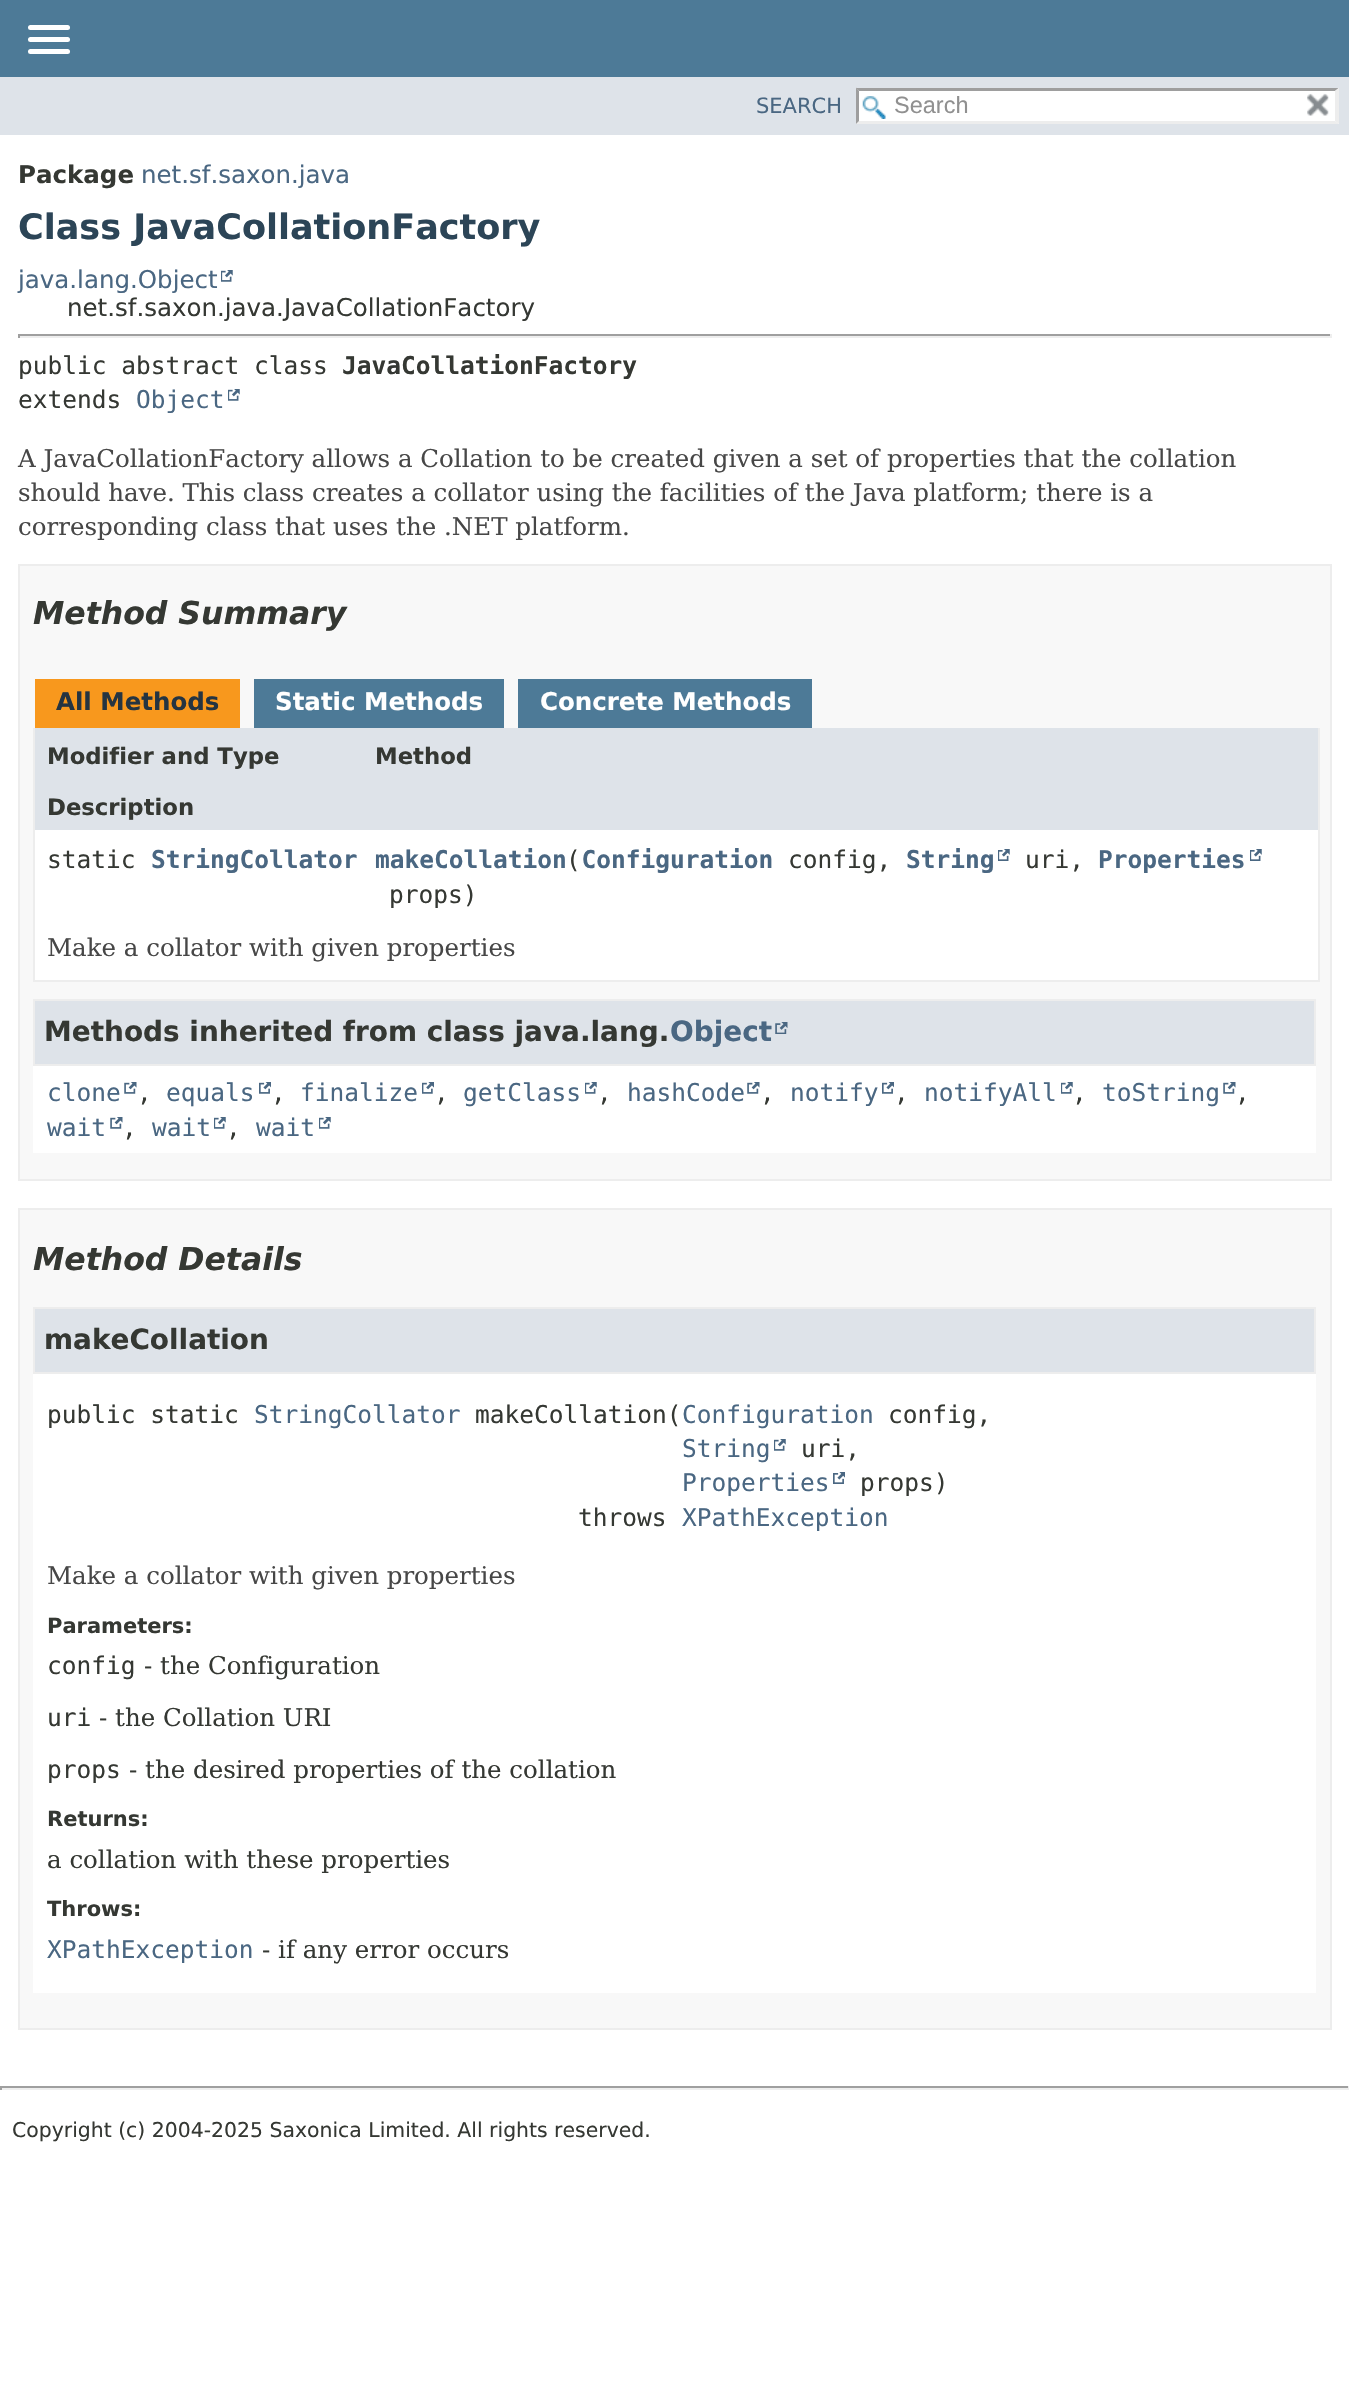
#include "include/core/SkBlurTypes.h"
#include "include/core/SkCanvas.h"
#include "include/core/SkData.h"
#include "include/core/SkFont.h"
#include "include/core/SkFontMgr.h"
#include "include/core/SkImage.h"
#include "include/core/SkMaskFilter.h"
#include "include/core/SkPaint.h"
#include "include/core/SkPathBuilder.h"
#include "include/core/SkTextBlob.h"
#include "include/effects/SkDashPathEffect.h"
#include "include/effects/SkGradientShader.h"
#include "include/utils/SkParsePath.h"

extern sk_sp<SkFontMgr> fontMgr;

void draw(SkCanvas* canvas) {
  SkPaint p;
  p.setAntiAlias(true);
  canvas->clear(SK_ColorWHITE);
  p.setColor(SkColorSetRGB(77, 122, 151));
  canvas->drawRect(SkRect::MakeLTRB(0, 0, 1349, 77), p);
  p.setColor(SK_ColorWHITE);
  canvas->drawRoundRect(SkRect::MakeLTRB(28, 25, 70, 30), 2.5f, 2.5f, p);
  canvas->drawRoundRect(SkRect::MakeLTRB(28, 37, 70, 42), 2.5f, 2.5f, p);
  canvas->drawRoundRect(SkRect::MakeLTRB(28, 49, 70, 54), 2.5f, 2.5f, p);
  p.setColor(SkColorSetRGB(222, 227, 233));
  canvas->drawRect(SkRect::MakeLTRB(0, 77, 1349, 135), p);
  p.setColor(SK_ColorWHITE);
  canvas->drawRect(SkRect::MakeLTRB(856, 88, 1339, 124), p);
  canvas->drawImageRect(SkImages::DeferredFromEncodedData(SkData::MakeFromFileName("images/1.png")), SkRect::MakeLTRB(862, 96, 886, 119), SkSamplingOptions());
  p.setColor(SkColorSetRGB(158, 158, 158));
  canvas->drawPath(SkPathBuilder().moveTo(856, 88).lineTo(1339, 88).lineTo(1335, 91).lineTo(859, 91).close().detach(), p);
  p.setColor(SkColorSetRGB(237, 237, 237));
  canvas->drawPath(SkPathBuilder().moveTo(1339, 87.5f).lineTo(1339, 124).lineTo(1335, 121).lineTo(1335, 91).close().detach(), p);
  canvas->drawPath(SkPathBuilder().moveTo(1339, 124).lineTo(856, 124).lineTo(859, 121).lineTo(1335, 121).close().detach(), p);
  p.setColor(SkColorSetRGB(158, 158, 158));
  canvas->drawPath(SkPathBuilder().moveTo(856, 124).lineTo(856, 87.5f).lineTo(859, 91).lineTo(859, 121).close().detach(), p);
  canvas->drawImageRect(SkImages::DeferredFromEncodedData(SkData::MakeFromFileName("images/2.png")), SkRect::MakeLTRB(1307, 93, 1329, 116), SkSamplingOptions());
  canvas->drawImageRect(SkImages::DeferredFromEncodedData(SkData::MakeFromFileName("images/3.png")), SkRect::MakeLTRB(221, 270, 233, 282), SkSamplingOptions());
  p.setColor(SkColorSetRGB(159, 159, 159));
  canvas->drawRect(SkRect::MakeLTRB(18, 334, 1332, 336), p);
  p.setColor(SkColorSetRGB(238, 238, 238));
  canvas->drawRect(SkRect::MakeLTRB(1330, 334, 1332, 338), p);
  canvas->drawRect(SkRect::MakeLTRB(18, 336, 1332, 338), p);
  p.setColor(SkColorSetRGB(159, 159, 159));
  canvas->drawRect(SkRect::MakeLTRB(18, 334, 20, 338), p);
  canvas->drawImageRect(SkImages::DeferredFromEncodedData(SkData::MakeFromFileName("images/3.png")), SkRect::MakeLTRB(228, 389, 240, 401), SkSamplingOptions());
  p.setColor(SkColorSetRGB(248, 248, 248));
  canvas->drawRect(SkRect::MakeLTRB(19, 565, 1331, 1180), p);
  p.setStyle(SkPaint::kStroke_Style);
  p.setStrokeWidth(2);
  p.setColor(SkColorSetRGB(237, 237, 237));
  canvas->drawRect(SkRect::MakeLTRB(19, 565, 1331, 1180), p);
  p.setStyle(SkPaint::kFill_Style);
  p.setColor(SkColorSetRGB(248, 152, 29));
  canvas->drawRect(SkRect::MakeLTRB(35, 679, 240, 728), p);
  p.setColor(SkColorSetRGB(77, 122, 151));
  canvas->drawRect(SkRect::MakeLTRB(254, 679, 504, 728), p);
  canvas->drawRect(SkRect::MakeLTRB(518, 679, 812, 728), p);
  p.setColor(SkColorSetRGB(237, 237, 237));
  canvas->drawRect(SkRect::MakeLTRB(1318, 728, 1320, 982), p);
  canvas->drawRect(SkRect::MakeLTRB(33, 980, 1320, 982), p);
  canvas->drawRect(SkRect::MakeLTRB(33, 728, 35, 982), p);
  p.setColor(SkColorSetRGB(222, 227, 233));
  canvas->drawRect(SkRect::MakeLTRB(35, 728, 1318, 830), p);
  p.setColor(SK_ColorWHITE);
  canvas->drawRect(SkRect::MakeLTRB(35, 830, 1318, 980), p);
  canvas->drawImageRect(SkImages::DeferredFromEncodedData(SkData::MakeFromFileName("images/4.png")), SkRect::MakeLTRB(998, 849, 1010, 861), SkSamplingOptions());
  canvas->drawImageRect(SkImages::DeferredFromEncodedData(SkData::MakeFromFileName("images/4.png")), SkRect::MakeLTRB(1250, 849, 1262, 861), SkSamplingOptions());
  canvas->drawRect(SkRect::MakeLTRB(33, 1066, 1316, 1153), p);
  p.setColor(SkColorSetRGB(222, 227, 233));
  canvas->drawRect(SkRect::MakeLTRB(34, 1000, 1315, 1065), p);
  p.setStyle(SkPaint::kStroke_Style);
  p.setColor(SkColorSetRGB(237, 237, 237));
  canvas->drawRect(SkRect::MakeLTRB(34, 1000, 1315, 1065), p);
  canvas->drawImageRect(SkImages::DeferredFromEncodedData(SkData::MakeFromFileName("images/5.png")), SkRect::MakeLTRB(775, 1022, 788, 1034), SkSamplingOptions());
  canvas->drawImageRect(SkImages::DeferredFromEncodedData(SkData::MakeFromFileName("images/6.png")), SkRect::MakeLTRB(124, 1082, 137, 1094), SkSamplingOptions());
  canvas->drawImageRect(SkImages::DeferredFromEncodedData(SkData::MakeFromFileName("images/7.png")), SkRect::MakeLTRB(259, 1082, 271, 1094), SkSamplingOptions());
  canvas->drawImageRect(SkImages::DeferredFromEncodedData(SkData::MakeFromFileName("images/8.png")), SkRect::MakeLTRB(422, 1082, 434, 1094), SkSamplingOptions());
  canvas->drawImageRect(SkImages::DeferredFromEncodedData(SkData::MakeFromFileName("images/3.png")), SkRect::MakeLTRB(585, 1082, 597, 1094), SkSamplingOptions());
  canvas->drawImageRect(SkImages::DeferredFromEncodedData(SkData::MakeFromFileName("images/6.png")), SkRect::MakeLTRB(747, 1082, 760, 1094), SkSamplingOptions());
  canvas->drawImageRect(SkImages::DeferredFromEncodedData(SkData::MakeFromFileName("images/7.png")), SkRect::MakeLTRB(882, 1082, 894, 1094), SkSamplingOptions());
  canvas->drawImageRect(SkImages::DeferredFromEncodedData(SkData::MakeFromFileName("images/3.png")), SkRect::MakeLTRB(1061, 1082, 1073, 1094), SkSamplingOptions());
  canvas->drawImageRect(SkImages::DeferredFromEncodedData(SkData::MakeFromFileName("images/6.png")), SkRect::MakeLTRB(1223, 1082, 1236, 1094), SkSamplingOptions());
  canvas->drawImageRect(SkImages::DeferredFromEncodedData(SkData::MakeFromFileName("images/6.png")), SkRect::MakeLTRB(110, 1117, 123, 1129), SkSamplingOptions());
  canvas->drawImageRect(SkImages::DeferredFromEncodedData(SkData::MakeFromFileName("images/3.png")), SkRect::MakeLTRB(214, 1117, 226, 1129), SkSamplingOptions());
  canvas->drawImageRect(SkImages::DeferredFromEncodedData(SkData::MakeFromFileName("images/3.png")), SkRect::MakeLTRB(319, 1117, 331, 1129), SkSamplingOptions());
  p.setStyle(SkPaint::kFill_Style);
  p.setColor(SkColorSetRGB(248, 248, 248));
  canvas->drawRect(SkRect::MakeLTRB(19, 1209, 1331, 2029), p);
  p.setStyle(SkPaint::kStroke_Style);
  p.setColor(SkColorSetRGB(237, 237, 237));
  canvas->drawRect(SkRect::MakeLTRB(19, 1209, 1331, 2029), p);
  p.setStyle(SkPaint::kFill_Style);
  p.setColor(SK_ColorWHITE);
  canvas->drawRect(SkRect::MakeLTRB(33, 1374, 1316, 1993), p);
  p.setColor(SkColorSetRGB(222, 227, 233));
  canvas->drawRect(SkRect::MakeLTRB(34, 1308, 1315, 1373), p);
  p.setStyle(SkPaint::kStroke_Style);
  p.setColor(SkColorSetRGB(237, 237, 237));
  canvas->drawRect(SkRect::MakeLTRB(34, 1308, 1315, 1373), p);
  canvas->drawImageRect(SkImages::DeferredFromEncodedData(SkData::MakeFromFileName("images/3.png")), SkRect::MakeLTRB(774, 1439, 786, 1451), SkSamplingOptions());
  canvas->drawImageRect(SkImages::DeferredFromEncodedData(SkData::MakeFromFileName("images/9.png")), SkRect::MakeLTRB(833, 1472, 845, 1484), SkSamplingOptions());
  p.setStyle(SkPaint::kFill_Style);
  p.setColor(SkColorSetRGB(159, 159, 159));
  canvas->drawRect(SkRect::MakeLTRB(0, 2086, 1349, 2088), p);
  p.setColor(SkColorSetRGB(238, 238, 238));
  canvas->drawRect(SkRect::MakeLTRB(1348, 2086, 1349, 2090), p);
  canvas->drawRect(SkRect::MakeLTRB(0, 2088, 1349, 2090), p);
  p.setColor(SkColorSetRGB(159, 159, 159));
  canvas->drawRect(SkRect::MakeLTRB(0, 2086, 2, 2090), p);
  SkFont font1(fontMgr->matchFamilyStyle("DejaVu Sans", SkFontStyle::Normal()), 21);
  font1.setSubpixel(true);
  p.setColor(SkColorSetRGB(74, 103, 130));
  canvas->drawString("SEARCH", 756, 113, font1, p);
  SkFont font2(fontMgr->matchFamilyStyle("Liberation Sans", SkFontStyle::Normal()), 23.5f);
  font2.setSubpixel(true);
  p.setColor(SkColorSetRGB(144, 144, 144));
  canvas->drawString("Search", 894, 113, font2, p);
  SkFont font3(fontMgr->matchFamilyStyle("DejaVu Sans", SkFontStyle::Bold()), 24.5f);
  font3.setSubpixel(true);
  p.setColor(SkColorSetRGB(53, 56, 51));
  canvas->drawString("Package", 18, 183, font3, p);
  SkFont font4(fontMgr->matchFamilyStyle("DejaVu Sans", SkFontStyle::Normal()), 24.5f);
  font4.setSubpixel(true);
  p.setColor(SkColorSetRGB(74, 103, 130));
  canvas->drawString("net.sf.saxon.java", 141, 183, font4, p);
  SkFont font5(fontMgr->matchFamilyStyle("DejaVu Sans", SkFontStyle::Bold()), 35);
  font5.setSubpixel(true);
  p.setColor(SkColorSetRGB(44, 69, 87));
  canvas->drawString("Class JavaCollationFactory", 18, 239, font5, p);
  p.setColor(SkColorSetRGB(74, 103, 130));
  canvas->drawString("java.lang.Object", 18, 288, font4, p);
  p.setColor(SkColorSetRGB(53, 56, 51));
  canvas->drawString("net.sf.saxon.java.JavaCollationFactory", 67, 316, font4, p);
  SkFont font6(fontMgr->matchFamilyStyle("DejaVu Sans Mono", SkFontStyle::Normal()), 24.5f);
  font6.setSubpixel(true);
  canvas->drawString("public abstract class", 18, 374, font6, p);
  SkFont font7(fontMgr->matchFamilyStyle("DejaVu Sans Mono", SkFontStyle::Bold()), 24.5f);
  font7.setSubpixel(true);
  canvas->drawString("JavaCollationFactory", 342, 374, font7, p);
  canvas->drawString("extends", 18, 408, font6, p);
  p.setColor(SkColorSetRGB(74, 103, 130));
  canvas->drawString("Object", 136, 408, font6, p);
  SkFont font8(fontMgr->matchFamilyStyle("DejaVu Serif", SkFontStyle::Normal()), 24.5f);
  font8.setSubpixel(true);
  p.setColor(SkColorSetRGB(71, 71, 71));
  canvas->drawString("A JavaCollationFactory allows a Collation to be created given a set of properties that the collation", 18, 467, font8, p);
  canvas->drawString("should have. This class creates a collator using the facilities of the Java platform; there is a", 18, 501, font8, p);
  canvas->drawString("corresponding class that uses the .NET platform.", 18, 535, font8, p);
  SkFont font9(fontMgr->matchFamilyStyle("DejaVu Sans", SkFontStyle::BoldItalic()), 31.5f);
  font9.setSubpixel(true);
  p.setColor(SkColorSetRGB(53, 56, 51));
  canvas->drawString("Method Summary", 33, 624, font9, p);
  p.setColor(SkColorSetRGB(37, 52, 65));
  canvas->drawString("All Methods", 56, 710, font3, p);
  p.setColor(SK_ColorWHITE);
  canvas->drawString("Static Methods", 275, 710, font3, p);
  canvas->drawString("Concrete Methods", 540, 710, font3, p);
  SkFont font10(fontMgr->matchFamilyStyle("DejaVu Sans", SkFontStyle::Bold()), 22.75f);
  font10.setSubpixel(true);
  p.setColor(SkColorSetRGB(53, 56, 51));
  canvas->drawString("Modifier and Type", 47, 764, font10, p);
  canvas->drawString("Method", 375, 764, font10, p);
  canvas->drawString("Description", 47, 815, font10, p);
  canvas->drawString("static", 47, 868, font6, p);
  p.setColor(SkColorSetRGB(74, 103, 130));
  canvas->drawString("StringCollator", 151, 868, font7, p);
  canvas->drawString("makeCollation Configuration", 375, 868, font7, p);
  canvas->drawString("String", 906, 868, font7, p);
  canvas->drawString("Properties", 1098, 868, font7, p);
  p.setColor(SkColorSetRGB(53, 56, 51));
  canvas->drawString("(", 566, 868, font6, p);
  canvas->drawString("config,", 788, 868, font6, p);
  canvas->drawString("uri,", 1025, 868, font6, p);
  canvas->drawString("props)", 389, 903, font6, p);
  p.setColor(SkColorSetRGB(71, 71, 71));
  canvas->drawString("Make a collator with given properties", 47, 956, font8, p);
  SkFont font11(fontMgr->matchFamilyStyle("DejaVu Sans", SkFontStyle::Bold()), 27.9f);
  font11.setSubpixel(true);
  p.setColor(SkColorSetRGB(53, 56, 51));
  canvas->drawString("Methods inherited from class java.lang.", 44, 1041, font11, p);
  p.setColor(SkColorSetRGB(74, 103, 130));
  canvas->drawString("Object", 670, 1041, font11, p);
  canvas->drawString("clone", 47, 1101, font6, p);
  p.setColor(SkColorSetRGB(53, 56, 51));
  canvas->drawString(",", 137, 1101, font6, p);
  p.setColor(SkColorSetRGB(74, 103, 130));
  canvas->drawString("equals", 166, 1101, font6, p);
  p.setColor(SkColorSetRGB(53, 56, 51));
  canvas->drawString(",", 271, 1101, font6, p);
  p.setColor(SkColorSetRGB(74, 103, 130));
  canvas->drawString("finalize", 300, 1101, font6, p);
  p.setColor(SkColorSetRGB(53, 56, 51));
  canvas->drawString(",", 434, 1101, font6, p);
  p.setColor(SkColorSetRGB(74, 103, 130));
  canvas->drawString("getClass", 463, 1101, font6, p);
  p.setColor(SkColorSetRGB(53, 56, 51));
  canvas->drawString(",", 597, 1101, font6, p);
  p.setColor(SkColorSetRGB(74, 103, 130));
  canvas->drawString("hashCode", 627, 1101, font6, p);
  p.setColor(SkColorSetRGB(53, 56, 51));
  canvas->drawString(",", 760, 1101, font6, p);
  p.setColor(SkColorSetRGB(74, 103, 130));
  canvas->drawString("notify", 790, 1101, font6, p);
  p.setColor(SkColorSetRGB(53, 56, 51));
  canvas->drawString(",", 894, 1101, font6, p);
  p.setColor(SkColorSetRGB(74, 103, 130));
  canvas->drawString("notifyAll", 924, 1101, font6, p);
  p.setColor(SkColorSetRGB(53, 56, 51));
  canvas->drawString(",", 1072, 1101, font6, p);
  p.setColor(SkColorSetRGB(74, 103, 130));
  canvas->drawString("toString", 1102, 1101, font6, p);
  p.setColor(SkColorSetRGB(53, 56, 51));
  canvas->drawString(",", 1235, 1101, font6, p);
  p.setColor(SkColorSetRGB(74, 103, 130));
  canvas->drawString("wait", 47, 1136, font6, p);
  p.setColor(SkColorSetRGB(53, 56, 51));
  canvas->drawString(",", 122, 1136, font6, p);
  p.setColor(SkColorSetRGB(74, 103, 130));
  canvas->drawString("wait", 152, 1136, font6, p);
  p.setColor(SkColorSetRGB(53, 56, 51));
  canvas->drawString(",", 226, 1136, font6, p);
  p.setColor(SkColorSetRGB(74, 103, 130));
  canvas->drawString("wait", 256, 1136, font6, p);
  p.setColor(SkColorSetRGB(53, 56, 51));
  canvas->drawString("Method Details", 33, 1270, font9, p);
  canvas->drawString("makeCollation", 44, 1349, font11, p);
  canvas->drawString("public static", 47, 1423, font6, p);
  p.setColor(SkColorSetRGB(74, 103, 130));
  canvas->drawString("StringCollator", 254, 1423, font6, p);
  p.setColor(SkColorSetRGB(53, 56, 51));
  canvas->drawString("makeCollation(", 475, 1423, font6, p);
  p.setColor(SkColorSetRGB(74, 103, 130));
  canvas->drawString("Configuration", 682, 1423, font6, p);
  p.setColor(SkColorSetRGB(53, 56, 51));
  canvas->drawString("config,", 888, 1423, font6, p);
  p.setColor(SkColorSetRGB(74, 103, 130));
  canvas->drawString("String", 682, 1457, font6, p);
  p.setColor(SkColorSetRGB(53, 56, 51));
  canvas->drawString("uri,", 801, 1457, font6, p);
  p.setColor(SkColorSetRGB(74, 103, 130));
  canvas->drawString("Properties", 682, 1491, font6, p);
  p.setColor(SkColorSetRGB(53, 56, 51));
  canvas->drawString("props)", 860, 1491, font6, p);
  canvas->drawString("throws", 578, 1526, font6, p);
  p.setColor(SkColorSetRGB(74, 103, 130));
  canvas->drawString("XPathException", 682, 1526, font6, p);
  p.setColor(SkColorSetRGB(71, 71, 71));
  canvas->drawString("Make a collator with given properties", 47, 1584, font8, p);
  SkFont font12(fontMgr->matchFamilyStyle("DejaVu Sans", SkFontStyle::Bold()), 21);
  font12.setSubpixel(true);
  p.setColor(SkColorSetRGB(53, 56, 51));
  canvas->drawString("Parameters:", 47, 1633, font12, p);
  canvas->drawString("config", 47, 1674, font6, p);
  canvas->drawString("- the Configuration", 144, 1674, font8, p);
  canvas->drawString("uri", 47, 1726, font6, p);
  canvas->drawString("- the Collation URI", 99, 1726, font8, p);
  canvas->drawString("props", 47, 1778, font6, p);
  canvas->drawString("- the desired properties of the collation", 129, 1778, font8, p);
  canvas->drawString("Returns:", 47, 1826, font12, p);
  canvas->drawString("a collation with these properties", 47, 1868, font8, p);
  canvas->drawString("Throws:", 47, 1916, font12, p);
  p.setColor(SkColorSetRGB(74, 103, 130));
  canvas->drawString("XPathException", 47, 1958, font6, p);
  p.setColor(SkColorSetRGB(53, 56, 51));
  canvas->drawString("- if any error occurs", 262, 1958, font8, p);
  SkFont font13(fontMgr->matchFamilyStyle("DejaVu Sans", SkFontStyle::Normal()), 20.4f);
  font13.setSubpixel(true);
  canvas->drawString("Copyright (c) 2004-2025 Saxonica Limited. All rights reserved.", 12, 2137, font13, p);
}
